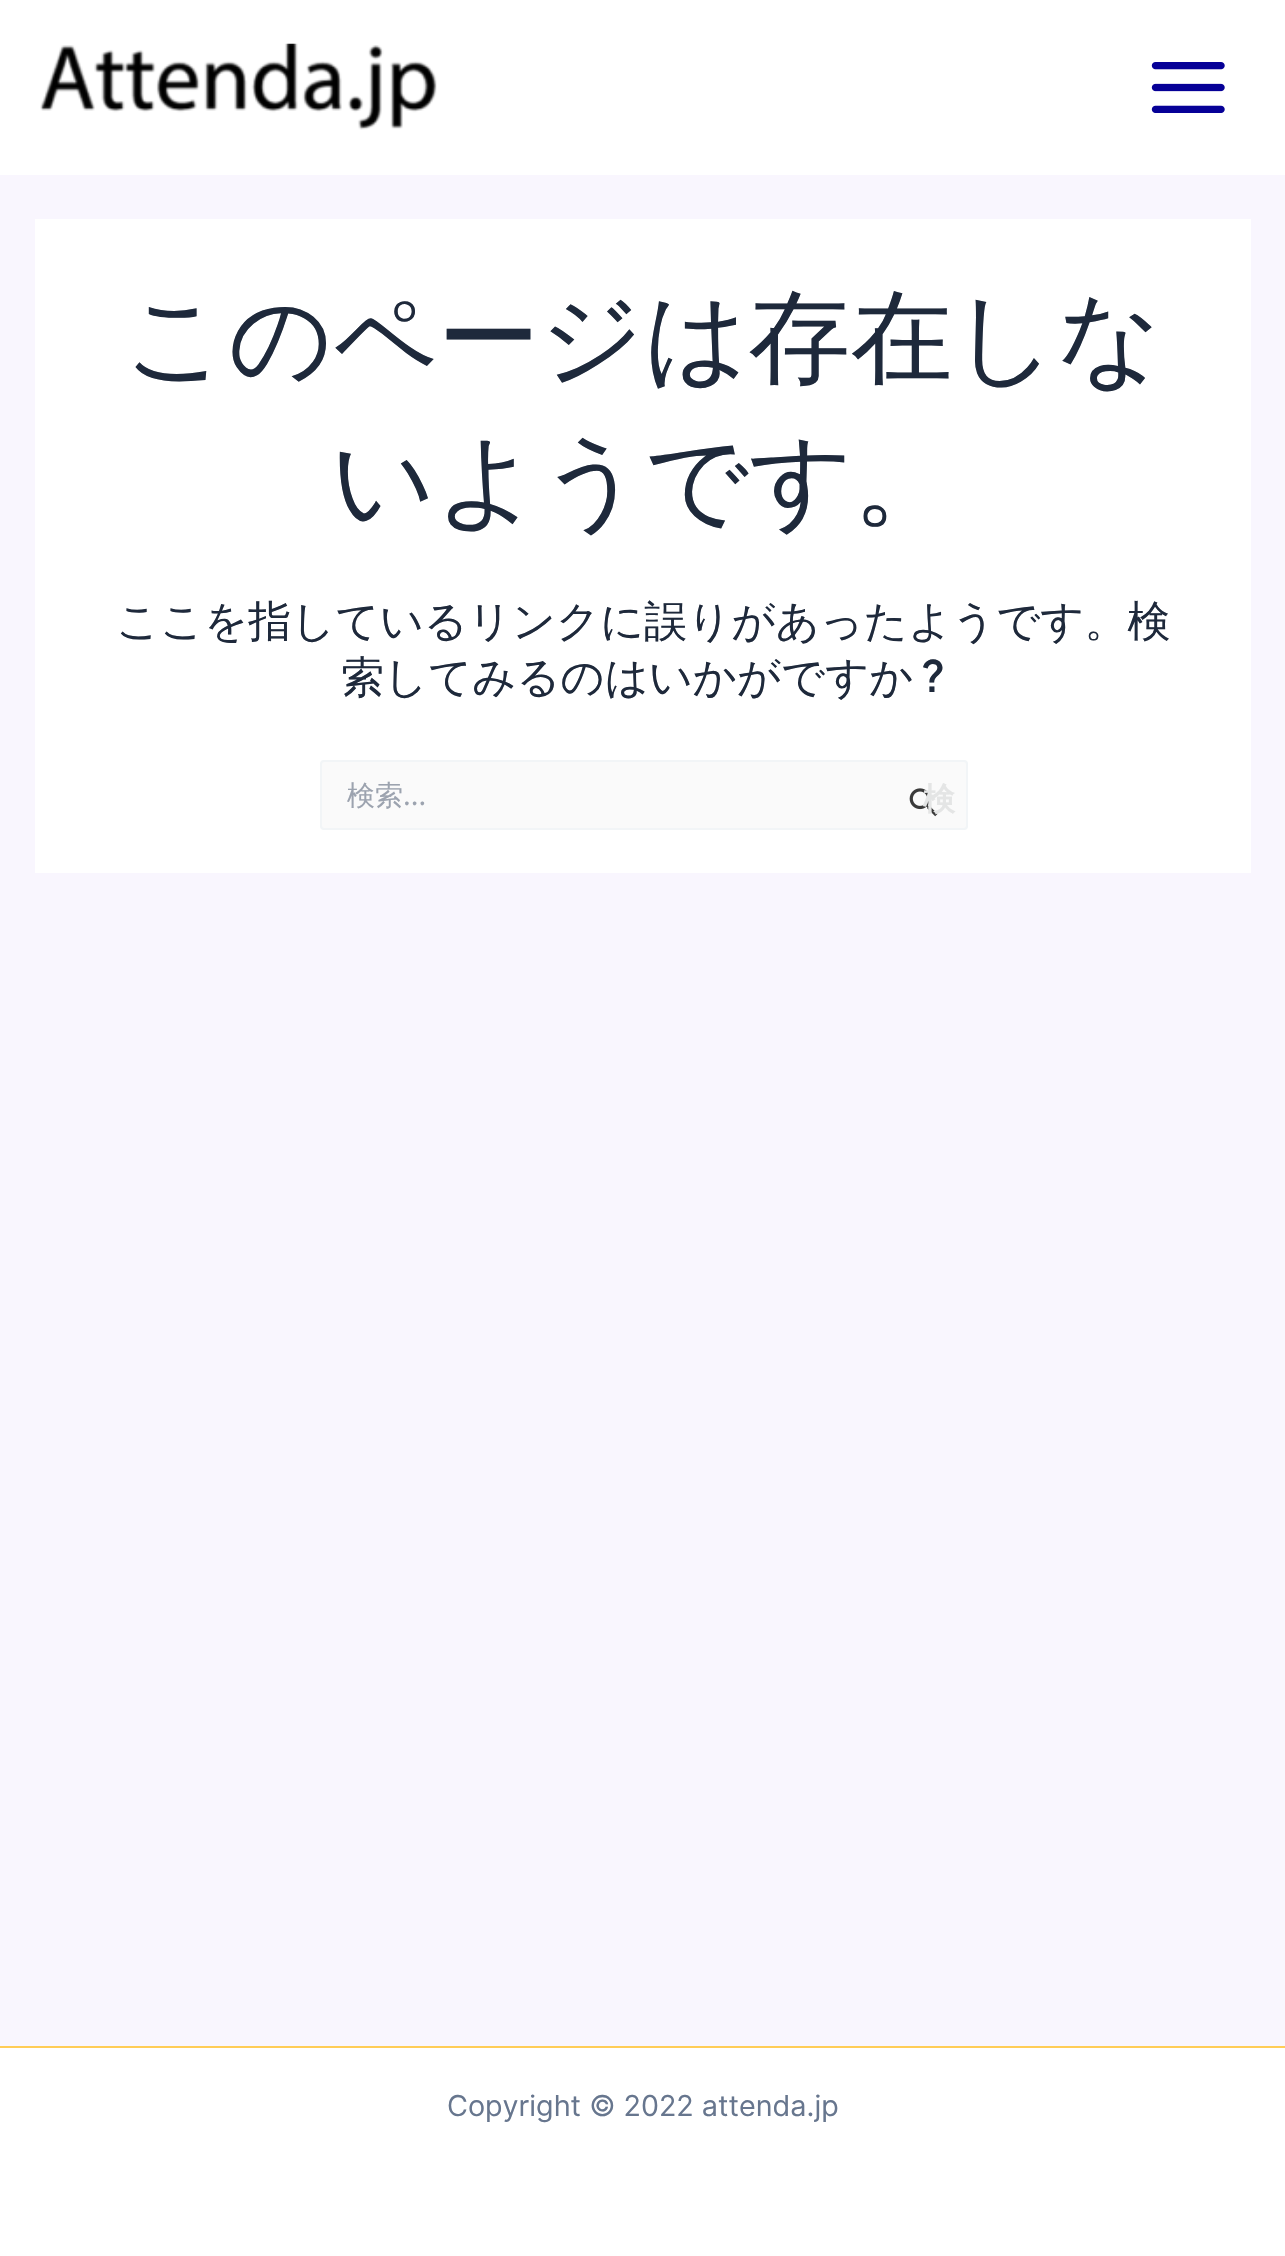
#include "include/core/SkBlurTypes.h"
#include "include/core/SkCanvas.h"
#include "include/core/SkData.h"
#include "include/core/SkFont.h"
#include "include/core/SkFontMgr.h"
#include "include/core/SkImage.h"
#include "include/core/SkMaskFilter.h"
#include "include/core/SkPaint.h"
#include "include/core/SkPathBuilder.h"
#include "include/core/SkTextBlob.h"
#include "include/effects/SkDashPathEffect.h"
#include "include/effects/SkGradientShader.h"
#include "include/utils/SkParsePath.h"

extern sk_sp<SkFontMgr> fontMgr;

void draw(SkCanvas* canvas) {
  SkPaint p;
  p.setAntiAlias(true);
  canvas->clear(SkColorSetRGB(249, 246, 254));
  p.setColor(SK_ColorWHITE);
  canvas->drawRect(SkRect::MakeLTRB(0, 0, 1285, 175), p);
  canvas->drawImageRect(SkImages::DeferredFromEncodedData(SkData::MakeFromFileName("images/1.png")), SkRect::MakeLTRB(40, 43, 437, 130), SkSamplingOptions());
  canvas->drawImageRect(SkImages::DeferredFromEncodedData(SkData::MakeFromFileName("images/2.png")), SkRect::MakeLTRB(1151, 62, 1225, 113), SkSamplingOptions());
  canvas->drawRect(SkRect::MakeLTRB(35, 219, 1251, 873), p);
  p.setColor(SkColorSetRGB(250, 250, 250));
  canvas->drawRoundRect(SkRect::MakeLTRB(321, 761, 967, 829), 3, 3, p);
  p.setStyle(SkPaint::kStroke_Style);
  p.setStrokeWidth(2);
  p.setColor(SkColorSetRGB(242, 245, 247));
  canvas->drawRoundRect(SkRect::MakeLTRB(321, 761, 967, 829), 3, 3, p);
  canvas->drawImageRect(SkImages::DeferredFromEncodedData(SkData::MakeFromFileName("images/3.png")), SkRect::MakeLTRB(909, 788, 938, 817), SkSamplingOptions());
  p.setStyle(SkPaint::kFill_Style);
  p.setColor(SK_ColorWHITE);
  canvas->drawRect(SkRect::MakeLTRB(0, 2048, 1285, 2256), p);
  p.setColor(SkColorSetRGB(255, 205, 87));
  canvas->drawRect(SkRect::MakeLTRB(0, 2046, 1285, 2048), p);
  SkFont font1(fontMgr->matchFamilyStyle("WenQuanYi Zen Hei", SkFontStyle(500, SkFontStyle::kNormal_Width, SkFontStyle::kUpright_Slant)), 102.1f);
  font1.setSubpixel(true);
  p.setColor(SkColorSetRGB(30, 41, 59));
  canvas->drawString("このページは存在しな", 124, 373, font1, p);
  canvas->drawString("いようです。", 331, 516, font1, p);
  SkFont font2(fontMgr->matchFamilyStyle("WenQuanYi Zen Hei", SkFontStyle(500, SkFontStyle::kNormal_Width, SkFontStyle::kUpright_Slant)), 43.1f);
  font2.setSubpixel(true);
  canvas->drawString("ここを指しているリンクに誤りがあったようです。検", 116, 636, font2, p);
  canvas->drawString("索してみるのはいかがですか", 341, 692, font2, p);
  SkFont font3(fontMgr->matchFamilyStyle("Plus Jakarta Sans", SkFontStyle(600, SkFontStyle::kNormal_Width, SkFontStyle::kUpright_Slant)), 43.1f);
  font3.setSubpixel(true);
  canvas->drawString("?", 921, 692, font3, p);
  SkFont font4(fontMgr->matchFamilyStyle("WenQuanYi Zen Hei", SkFontStyle(500, SkFontStyle::kNormal_Width, SkFontStyle::kUpright_Slant)), 28);
  font4.setSubpixel(true);
  p.setColor(SkColorSetRGB(156, 163, 175));
  canvas->drawString("検索", 347, 805, font4, p);
  SkFont font5(fontMgr->matchFamilyStyle("Inter", SkFontStyle::Normal()), 28);
  font5.setSubpixel(true);
  canvas->drawString("...", 403, 805, font5, p);
  SkFont font6(fontMgr->matchFamilyStyle("WenQuanYi Zen Hei", SkFontStyle::Bold()), 32);
  font6.setSubpixel(true);
  p.setColor(SkColorSetRGB(228, 229, 229));
  canvas->drawString("検", 923, 810, font6, p);
  SkFont font7(fontMgr->matchFamilyStyle("Inter", SkFontStyle::Normal()), 28.75f);
  font7.setSubpixel(true);
  p.setColor(SkColorSetRGB(103, 118, 142));
  canvas->drawString("Copyright © 2022 attenda.jp", 447, 2116, font7, p);
}
